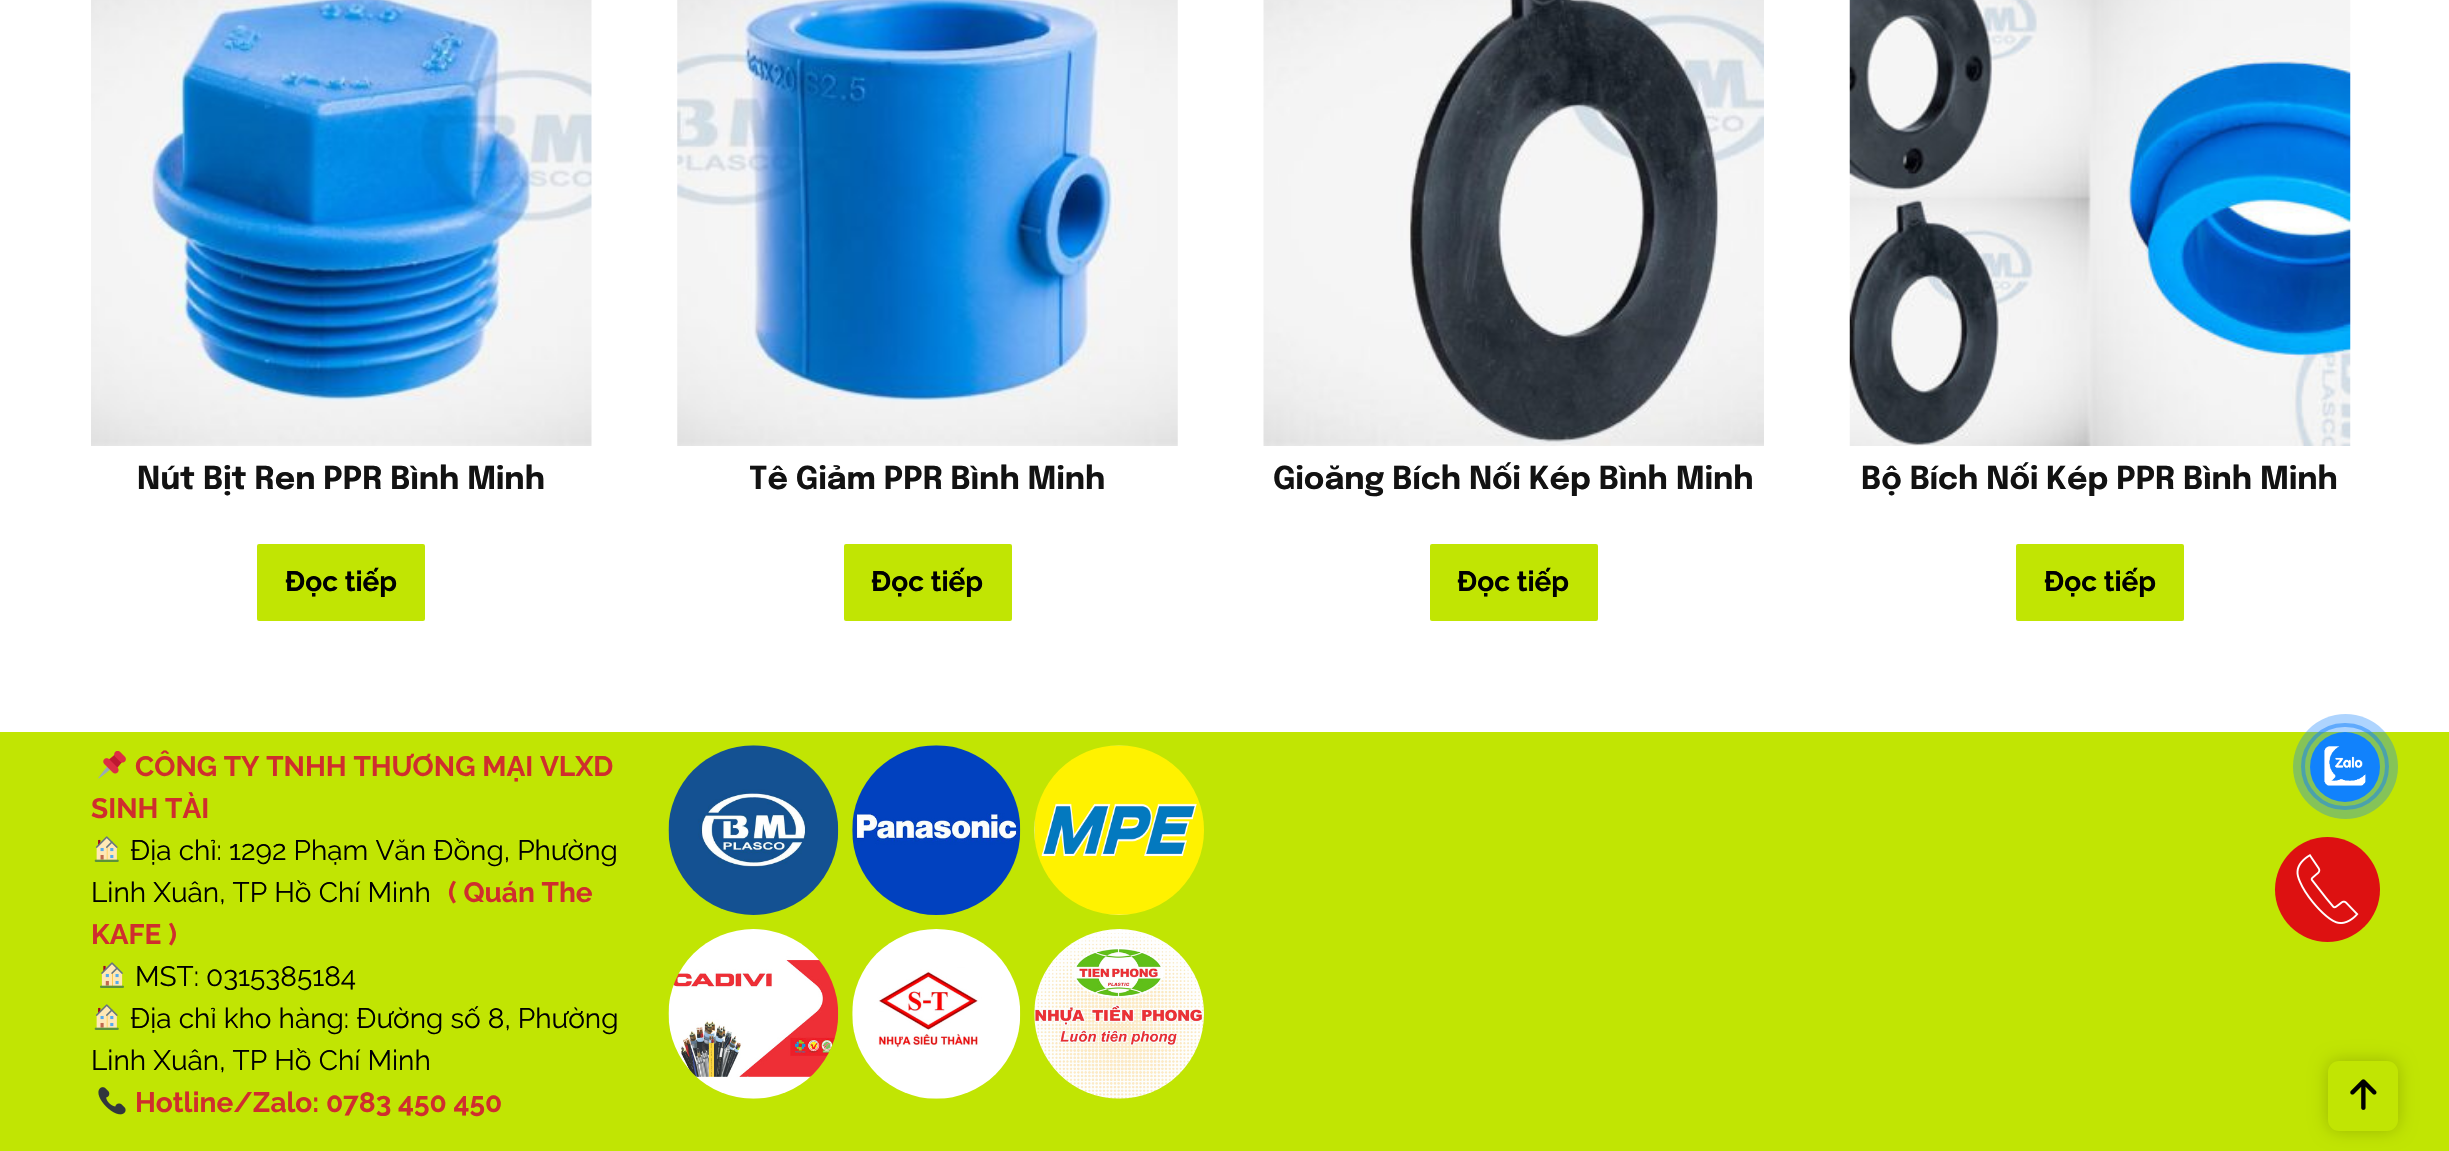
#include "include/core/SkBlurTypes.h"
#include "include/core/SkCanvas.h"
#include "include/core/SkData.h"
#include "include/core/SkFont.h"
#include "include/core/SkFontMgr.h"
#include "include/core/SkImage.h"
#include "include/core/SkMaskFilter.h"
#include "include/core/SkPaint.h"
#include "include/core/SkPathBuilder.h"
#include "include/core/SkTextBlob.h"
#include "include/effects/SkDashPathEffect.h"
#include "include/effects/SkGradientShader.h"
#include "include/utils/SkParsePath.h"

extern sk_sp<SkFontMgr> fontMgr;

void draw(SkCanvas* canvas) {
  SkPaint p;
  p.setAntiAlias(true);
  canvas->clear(SK_ColorWHITE);
  canvas->drawImageRect(SkImages::DeferredFromEncodedData(SkData::MakeFromFileName("images/1.png")), SkRect::MakeLTRB(91, 0, 592, 446), SkSamplingOptions());
  p.setColor(SkColorSetRGB(193, 229, 3));
  canvas->drawRoundRect(SkRect::MakeLTRB(257, 544, 425, 621), 2, 2, p);
  canvas->drawImageRect(SkImages::DeferredFromEncodedData(SkData::MakeFromFileName("images/2.png")), SkRect::MakeLTRB(677, 0, 1178, 446), SkSamplingOptions());
  canvas->drawRoundRect(SkRect::MakeLTRB(844, 544, 1012, 621), 2, 2, p);
  canvas->drawImageRect(SkImages::DeferredFromEncodedData(SkData::MakeFromFileName("images/3.png")), SkRect::MakeLTRB(1263, 0, 1764, 446), SkSamplingOptions());
  canvas->drawRoundRect(SkRect::MakeLTRB(1430, 544, 1598, 621), 2, 2, p);
  canvas->drawImageRect(SkImages::DeferredFromEncodedData(SkData::MakeFromFileName("images/4.png")), SkRect::MakeLTRB(1849, 0, 2351, 446), SkSamplingOptions());
  canvas->drawRoundRect(SkRect::MakeLTRB(2016, 544, 2184, 621), 2, 2, p);
  canvas->drawRect(SkRect::MakeLTRB(0, 732, 2449, 1151), p);
  canvas->drawImageRect(SkImages::DeferredFromEncodedData(SkData::MakeFromFileName("images/5.png")), SkRect::MakeLTRB(98, 751, 126, 779), SkSamplingOptions());
  canvas->drawImageRect(SkImages::DeferredFromEncodedData(SkData::MakeFromFileName("images/6.png")), SkRect::MakeLTRB(94, 836, 119, 862), SkSamplingOptions());
  canvas->drawImageRect(SkImages::DeferredFromEncodedData(SkData::MakeFromFileName("images/7.png")), SkRect::MakeLTRB(100, 962, 124, 988), SkSamplingOptions());
  canvas->drawImageRect(SkImages::DeferredFromEncodedData(SkData::MakeFromFileName("images/6.png")), SkRect::MakeLTRB(94, 1004, 119, 1030), SkSamplingOptions());
  canvas->drawImageRect(SkImages::DeferredFromEncodedData(SkData::MakeFromFileName("images/8.png")), SkRect::MakeLTRB(98, 1087, 126, 1115), SkSamplingOptions());
  canvas->drawImageRect(SkImages::DeferredFromEncodedData(SkData::MakeFromFileName("images/9.png")), SkRect::MakeLTRB(668, 745, 839, 915), SkSamplingOptions());
  canvas->drawImageRect(SkImages::DeferredFromEncodedData(SkData::MakeFromFileName("images/10.png")), SkRect::MakeLTRB(852, 745, 1021, 915), SkSamplingOptions());
  canvas->drawImageRect(SkImages::DeferredFromEncodedData(SkData::MakeFromFileName("images/11.png")), SkRect::MakeLTRB(1034, 745, 1204, 915), SkSamplingOptions());
  canvas->drawImageRect(SkImages::DeferredFromEncodedData(SkData::MakeFromFileName("images/12.png")), SkRect::MakeLTRB(668, 929, 839, 1099), SkSamplingOptions());
  canvas->drawImageRect(SkImages::DeferredFromEncodedData(SkData::MakeFromFileName("images/13.png")), SkRect::MakeLTRB(852, 929, 1021, 1099), SkSamplingOptions());
  canvas->drawImageRect(SkImages::DeferredFromEncodedData(SkData::MakeFromFileName("images/14.png")), SkRect::MakeLTRB(1034, 929, 1204, 1099), SkSamplingOptions());
  p.setColor(SkColorSetARGB(51, 0, 0, 0));
  p.setMaskFilter(SkMaskFilter::MakeBlur(kNormal_SkBlurStyle, 9));
  canvas->drawRoundRect(SkRect::MakeLTRB(2328, 1061, 2398, 1131), 11, 11, p);
  p.setMaskFilter(nullptr);
  p.setColor(SkColorSetRGB(193, 229, 3));
  canvas->drawRoundRect(SkRect::MakeLTRB(2328, 1061, 2398, 1131), 11, 11, p);
  canvas->drawImageRect(SkImages::DeferredFromEncodedData(SkData::MakeFromFileName("images/15.png")), SkRect::MakeLTRB(2350, 1079, 2377, 1110), SkSamplingOptions());
  p.setStyle(SkPaint::kStroke_Style);
  p.setStrokeWidth(4);
  p.setColor(SkColorSetARGB(128, 17, 130, 252));
  canvas->drawRoundRect(SkRect::MakeLTRB(2303, 725, 2387, 808), 41.5f, 41.5f, p);
  p.setStyle(SkPaint::kFill_Style);
  p.setColor(SkColorSetARGB(87, 17, 130, 252));
  canvas->drawCircle(2345.5f, 766.5f, 52.5f, p);
  p.setColor(SkColorSetRGB(17, 130, 252));
  canvas->drawCircle(2345, 767, 35, p);
  canvas->drawImageRect(SkImages::DeferredFromEncodedData(SkData::MakeFromFileName("images/16.png")), SkRect::MakeLTRB(2324, 746, 2366, 786), SkSamplingOptions());
  p.setColor(SkColorSetRGB(221, 17, 17));
  canvas->drawCircle(2327.5f, 889.5f, 52.5f, p);
  canvas->drawImageRect(SkImages::DeferredFromEncodedData(SkData::MakeFromFileName("images/17.png")), SkRect::MakeLTRB(2296, 854, 2359, 924), SkSamplingOptions());
  SkFont font1(fontMgr->matchFamilyStyle("Epilogue", SkFontStyle::Bold()), 31.5f);
  font1.setSubpixel(true);
  p.setColor(SkColorSetRGB(18, 18, 18));
  canvas->drawString("Nút Bịt Ren PPR Bình Minh", 137, 489, font1, p);
  SkFont font2(fontMgr->matchFamilyStyle("Raleway", SkFontStyle::Bold()), 28);
  font2.setSubpixel(true);
  p.setColor(SK_ColorBLACK);
  canvas->drawString("Đọc tiếp", 285, 591, font2, p);
  p.setColor(SkColorSetRGB(18, 18, 18));
  canvas->drawString("Tê Giảm PPR Bình Minh", 749, 489, font1, p);
  p.setColor(SK_ColorBLACK);
  canvas->drawString("Đọc tiếp", 871, 591, font2, p);
  p.setColor(SkColorSetRGB(18, 18, 18));
  canvas->drawString("Gioăng Bích Nối Kép Bình Minh", 1273, 489, font1, p);
  p.setColor(SK_ColorBLACK);
  canvas->drawString("Đọc tiếp", 1457, 591, font2, p);
  p.setColor(SkColorSetRGB(18, 18, 18));
  canvas->drawString("Bộ Bích Nối Kép PPR Bình Minh", 1861, 489, font1, p);
  p.setColor(SK_ColorBLACK);
  canvas->drawString("Đọc tiếp", 2044, 591, font2, p);
  p.setColor(SkColorSetRGB(207, 46, 46));
  canvas->drawString("CÔNG TY TNHH THƯƠNG MẠI VLXD", 135, 776, font2, p);
  canvas->drawString("SINH TÀI", 91, 818, font2, p);
  SkFont font3(fontMgr->matchFamilyStyle("Raleway", SkFontStyle(100, SkFontStyle::kNormal_Width, SkFontStyle::kUpright_Slant)), 28);
  font3.setSubpixel(true);
  p.setColor(SK_ColorBLACK);
  canvas->drawString("Địa chỉ: 1292 Phạm Văn Đồng, Phường", 130, 860, font3, p);
  canvas->drawString("Linh Xuân, TP Hồ Chí Minh", 91, 902, font3, p);
  p.setColor(SkColorSetRGB(207, 46, 46));
  canvas->drawString("( Quán The", 448, 902, font2, p);
  canvas->drawString("KAFE )", 91, 944, font2, p);
  p.setColor(SK_ColorBLACK);
  canvas->drawString("MST: 0315385184", 135, 986, font3, p);
  canvas->drawString("Địa chỉ kho hàng: Đường số 8, Phường", 130, 1028, font3, p);
  canvas->drawString("Linh Xuân, TP Hồ Chí Minh", 91, 1070, font3, p);
  p.setColor(SkColorSetRGB(207, 46, 46));
  canvas->drawString("Hotline/Zalo: 0783 450 450", 135, 1112, font2, p);
}
